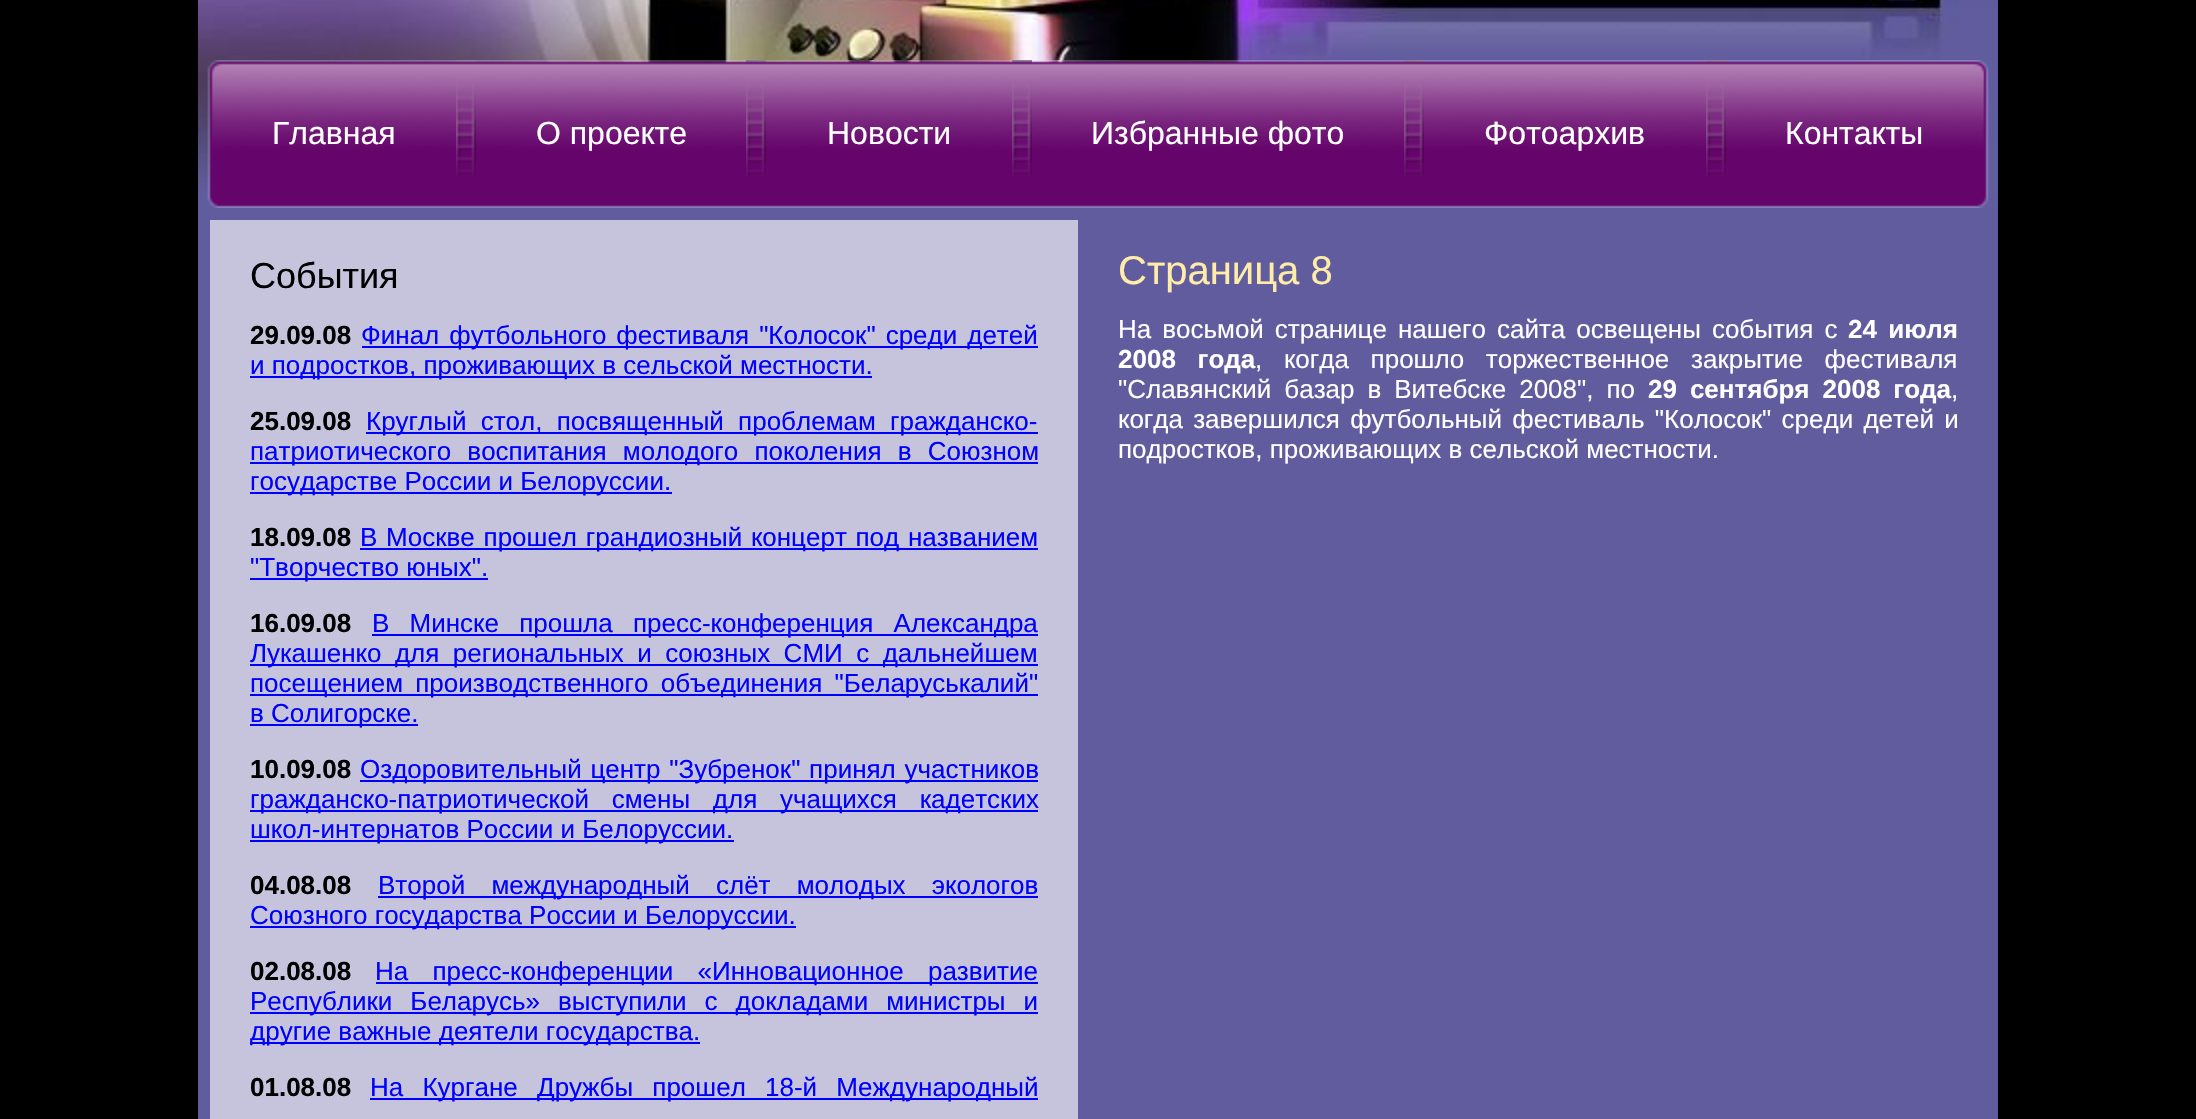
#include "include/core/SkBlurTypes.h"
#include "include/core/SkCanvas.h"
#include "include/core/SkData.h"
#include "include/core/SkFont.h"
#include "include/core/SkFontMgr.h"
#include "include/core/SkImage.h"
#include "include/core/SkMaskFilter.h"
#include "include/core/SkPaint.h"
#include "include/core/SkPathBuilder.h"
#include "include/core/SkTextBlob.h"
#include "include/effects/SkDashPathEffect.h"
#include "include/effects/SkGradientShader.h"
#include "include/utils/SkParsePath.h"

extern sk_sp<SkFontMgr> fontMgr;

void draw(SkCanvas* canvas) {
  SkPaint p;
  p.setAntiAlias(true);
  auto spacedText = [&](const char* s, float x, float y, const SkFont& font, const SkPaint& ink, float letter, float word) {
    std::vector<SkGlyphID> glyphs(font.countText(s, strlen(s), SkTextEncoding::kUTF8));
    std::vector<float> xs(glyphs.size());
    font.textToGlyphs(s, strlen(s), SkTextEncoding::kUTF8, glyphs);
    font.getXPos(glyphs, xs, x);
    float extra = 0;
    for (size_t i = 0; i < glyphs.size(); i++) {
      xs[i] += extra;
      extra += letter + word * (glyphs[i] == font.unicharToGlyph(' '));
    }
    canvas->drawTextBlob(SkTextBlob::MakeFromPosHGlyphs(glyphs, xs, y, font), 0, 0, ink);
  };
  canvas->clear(SK_ColorBLACK);
  canvas->drawImageRect(SkImages::DeferredFromEncodedData(SkData::MakeFromFileName("images/1.png")), SkRect::MakeLTRB(198, 0, 1998, 60), SkSamplingOptions());
  canvas->drawImageRect(SkImages::DeferredFromEncodedData(SkData::MakeFromFileName("images/2.png")), SkRect::MakeLTRB(198, 60, 1998, 208), SkSamplingOptions());
  canvas->drawImageRect(SkImages::DeferredFromEncodedData(SkData::MakeFromFileName("images/3.png")), SkRect::MakeLTRB(456, 60, 476, 177), SkSamplingOptions());
  canvas->drawImageRect(SkImages::DeferredFromEncodedData(SkData::MakeFromFileName("images/3.png")), SkRect::MakeLTRB(746, 60, 766, 177), SkSamplingOptions());
  canvas->drawImageRect(SkImages::DeferredFromEncodedData(SkData::MakeFromFileName("images/3.png")), SkRect::MakeLTRB(1012, 60, 1032, 177), SkSamplingOptions());
  canvas->drawImageRect(SkImages::DeferredFromEncodedData(SkData::MakeFromFileName("images/3.png")), SkRect::MakeLTRB(1404, 60, 1424, 177), SkSamplingOptions());
  canvas->drawImageRect(SkImages::DeferredFromEncodedData(SkData::MakeFromFileName("images/3.png")), SkRect::MakeLTRB(1706, 60, 1726, 177), SkSamplingOptions());
  p.setColor(SkColorSetRGB(97, 92, 158));
  canvas->drawRect(SkRect::MakeLTRB(198, 208, 1998, 1119), p);
  p.setColor(SkColorSetRGB(198, 196, 220));
  canvas->drawRect(SkRect::MakeLTRB(210, 220, 1078, 1119), p);
  p.setColor(SkColorSetRGB(0, 0, 255));
  canvas->drawRect(SkRect::MakeLTRB(362, 346, 1038, 348), p);
  canvas->drawRect(SkRect::MakeLTRB(250, 376, 872, 378), p);
  canvas->drawRect(SkRect::MakeLTRB(366, 432, 1038, 434), p);
  canvas->drawRect(SkRect::MakeLTRB(250, 462, 1038, 464), p);
  canvas->drawRect(SkRect::MakeLTRB(250, 492, 672, 494), p);
  canvas->drawRect(SkRect::MakeLTRB(360, 548, 1038, 550), p);
  canvas->drawRect(SkRect::MakeLTRB(250, 578, 488, 580), p);
  canvas->drawRect(SkRect::MakeLTRB(372, 634, 1038, 636), p);
  canvas->drawRect(SkRect::MakeLTRB(250, 664, 1038, 666), p);
  canvas->drawRect(SkRect::MakeLTRB(250, 694, 1038, 696), p);
  canvas->drawRect(SkRect::MakeLTRB(250, 724, 418, 726), p);
  canvas->drawRect(SkRect::MakeLTRB(360, 780, 1038, 782), p);
  canvas->drawRect(SkRect::MakeLTRB(250, 810, 1038, 812), p);
  canvas->drawRect(SkRect::MakeLTRB(250, 840, 734, 842), p);
  canvas->drawRect(SkRect::MakeLTRB(378, 896, 1038, 898), p);
  canvas->drawRect(SkRect::MakeLTRB(250, 926, 796, 928), p);
  canvas->drawRect(SkRect::MakeLTRB(376, 982, 1038, 984), p);
  canvas->drawRect(SkRect::MakeLTRB(250, 1012, 1038, 1014), p);
  canvas->drawRect(SkRect::MakeLTRB(250, 1042, 700, 1044), p);
  canvas->drawRect(SkRect::MakeLTRB(370, 1098, 1038, 1100), p);
  SkFont font1(fontMgr->matchFamilyStyle("Liberation Sans", SkFontStyle::Normal()), 32);
  font1.setSubpixel(true);
  p.setColor(SK_ColorWHITE);
  canvas->drawString("Главная", 272, 144, font1, p);
  canvas->drawString("О проекте", 536, 144, font1, p);
  canvas->drawString("Новости", 827, 144, font1, p);
  canvas->drawString("Избранные фото", 1091, 144, font1, p);
  canvas->drawString("Фотоархив", 1484, 144, font1, p);
  canvas->drawString("Контакты", 1785, 144, font1, p);
  SkFont font2(fontMgr->matchFamilyStyle("Liberation Sans", SkFontStyle::Normal()), 36);
  font2.setSubpixel(true);
  p.setColor(SK_ColorBLACK);
  canvas->drawString("События", 250, 288, font2, p);
  SkFont font3(fontMgr->matchFamilyStyle("Liberation Sans", SkFontStyle::Bold()), 26);
  font3.setSubpixel(true);
  canvas->drawString("29.09.08", 250, 344, font3, p);
  SkFont font4(fontMgr->matchFamilyStyle("Liberation Sans", SkFontStyle::Normal()), 26);
  font4.setSubpixel(true);
  p.setColor(SkColorSetRGB(0, 0, 255));
  spacedText("Финал футбольного фестиваля \"Колосок\" среди детей", 361, 344, font4, p, 0, 2.75f);
  canvas->drawString("и подростков, проживающих в сельской местности.", 250, 374, font4, p);
  p.setColor(SK_ColorBLACK);
  canvas->drawString("25.09.08", 250, 430, font3, p);
  p.setColor(SkColorSetRGB(0, 0, 255));
  spacedText("Круглый стол, посвященный проблемам гражданско-", 366, 430, font4, p, 0, 7);
  spacedText("патриотического воспитания молодого поколения в Союзном", 250, 460, font4, p, 0, 9);
  canvas->drawString("государстве России и Белоруссии.", 250, 490, font4, p);
  p.setColor(SK_ColorBLACK);
  canvas->drawString("18.09.08", 250, 546, font3, p);
  p.setColor(SkColorSetRGB(0, 0, 255));
  spacedText("В Москве прошел грандиозный концерт под названием", 360, 546, font4, p, 0, 1.5f);
  canvas->drawString("\"Творчество юных\".", 250, 576, font4, p);
  p.setColor(SK_ColorBLACK);
  canvas->drawString("16.09.08", 250, 632, font3, p);
  p.setColor(SkColorSetRGB(0, 0, 255));
  spacedText("В Минске прошла пресс-конференция Александра", 372, 632, font4, p, 0, 13);
  spacedText("Лукашенко для региональных и союзных СМИ с дальнейшем", 250, 662, font4, p, 0, 6.25f);
  spacedText("посещением производственного объединения \"Беларуськалий\"", 250, 692, font4, p, 0, 5);
  canvas->drawString("в Солигорске.", 250, 722, font4, p);
  p.setColor(SK_ColorBLACK);
  canvas->drawString("10.09.08", 250, 778, font3, p);
  p.setColor(SkColorSetRGB(0, 0, 255));
  spacedText("Оздоровительный центр \"Зубренок\" принял участников", 360, 778, font4, p, 0, 1.5f);
  spacedText("гражданско-патриотической смены для учащихся кадетских", 250, 808, font4, p, 0, 15.5f);
  canvas->drawString("школ-интернатов России и Белоруссии.", 250, 838, font4, p);
  p.setColor(SK_ColorBLACK);
  canvas->drawString("04.08.08", 250, 894, font3, p);
  p.setColor(SkColorSetRGB(0, 0, 255));
  spacedText("Второй международный слёт молодых экологов", 378, 894, font4, p, 0, 19);
  canvas->drawString("Союзного государства России и Белоруссии.", 250, 924, font4, p);
  p.setColor(SK_ColorBLACK);
  canvas->drawString("02.08.08", 250, 980, font3, p);
  p.setColor(SkColorSetRGB(0, 0, 255));
  spacedText("На пресс-конференции «Инновационное развитие", 375, 980, font4, p, 0, 17);
  spacedText("Республики Беларусь» выступили с докладами министры и", 250, 1010, font4, p, 0, 10.75f);
  canvas->drawString("другие важные деятели государства.", 250, 1040, font4, p);
  p.setColor(SK_ColorBLACK);
  canvas->drawString("01.08.08", 250, 1096, font3, p);
  p.setColor(SkColorSetRGB(0, 0, 255));
  spacedText("На Кургане Дружбы прошел 18-й Международный", 370, 1096, font4, p, 0, 12);
  SkFont font5(fontMgr->matchFamilyStyle("Liberation Sans", SkFontStyle::Normal()), 40);
  font5.setSubpixel(true);
  p.setColor(SkColorSetRGB(255, 236, 169));
  canvas->drawString("Страница 8", 1118, 284, font5, p);
  p.setColor(SK_ColorWHITE);
  spacedText("На восьмой странице нашего сайта освещены события с", 1118, 338, font4, p, 0, 3.75f);
  spacedText("24 июля", 1848, 338, font3, p, 0, 4);
  spacedText("2008 года", 1118, 368, font3, p, 0, 14.5f);
  spacedText(", когда прошло торжественное закрытие фестиваля", 1255, 368, font4, p, 0, 14.5f);
  spacedText("\"Славянский базар в Витебске 2008\", по", 1118, 398, font4, p, 0, 5.75f);
  spacedText("29 сентября 2008 года", 1648, 398, font3, p, 0, 5.75f);
  canvas->drawString(",", 1951, 398, font4, p);
  spacedText("когда завершился футбольный фестиваль \"Колосок\" среди детей и", 1118, 428, font4, p, 0, 3);
  canvas->drawString("подростков, проживающих в сельской местности.", 1118, 458, font4, p);
}
